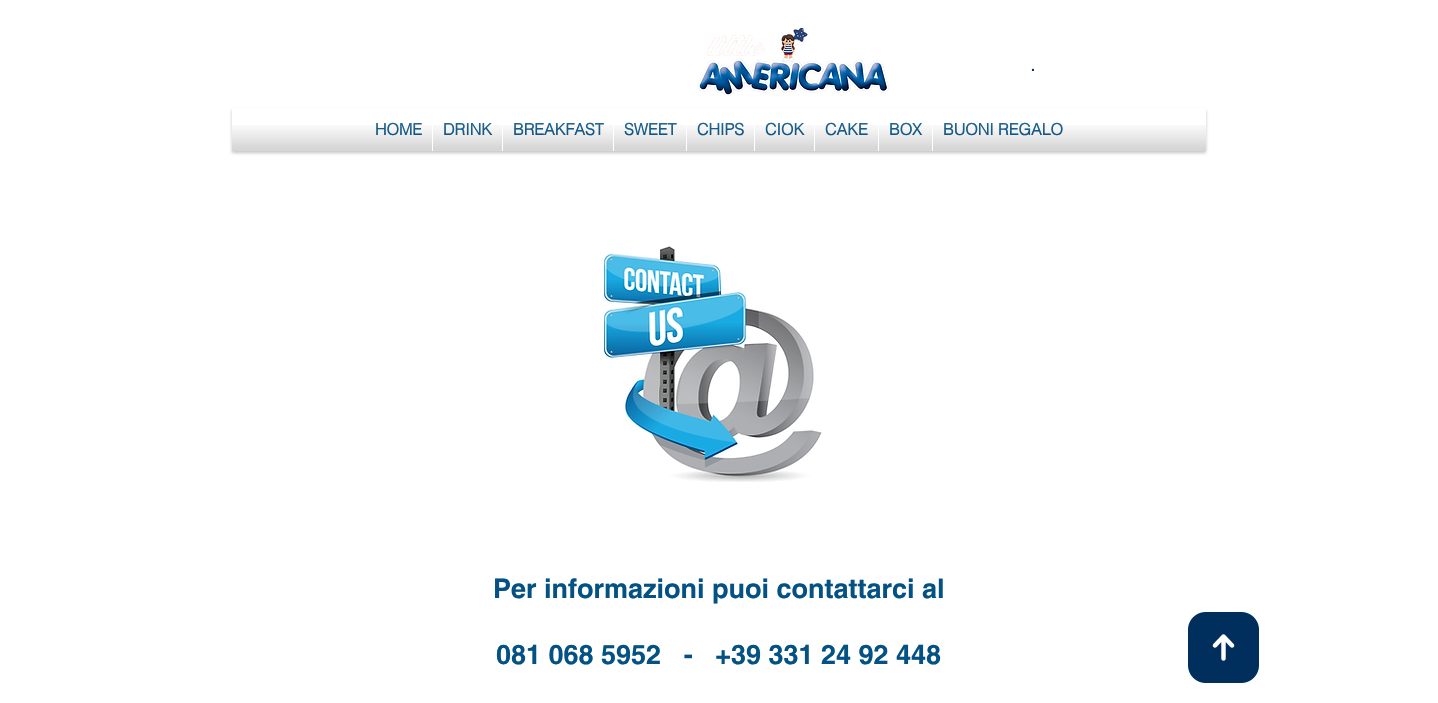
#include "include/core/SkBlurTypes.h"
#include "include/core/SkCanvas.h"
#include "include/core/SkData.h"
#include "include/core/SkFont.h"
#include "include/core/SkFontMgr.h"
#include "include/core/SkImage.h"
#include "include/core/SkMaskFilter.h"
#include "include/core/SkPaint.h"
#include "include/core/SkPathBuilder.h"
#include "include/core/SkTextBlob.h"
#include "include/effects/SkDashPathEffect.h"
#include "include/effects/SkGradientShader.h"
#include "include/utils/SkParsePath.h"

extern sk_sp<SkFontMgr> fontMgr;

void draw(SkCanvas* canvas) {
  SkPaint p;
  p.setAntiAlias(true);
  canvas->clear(SK_ColorWHITE);
  canvas->drawImageRect(SkImages::DeferredFromEncodedData(SkData::MakeFromFileName("images/1.png")), SkRect::MakeLTRB(697, 28, 902, 96), SkSamplingOptions());
  canvas->save();
  canvas->clipPath(SkPathBuilder(SkPathFillType::kEvenOdd).moveTo(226, 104).lineTo(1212, 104).lineTo(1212, 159).lineTo(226, 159).close().moveTo(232, 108).lineTo(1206, 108).lineTo(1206, 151).lineTo(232, 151).close().detach(), true);
  p.setColor(SkColorSetARGB(153, 162, 158, 158));
  p.setMaskFilter(SkMaskFilter::MakeBlur(kNormal_SkBlurStyle, 1.5f));
  canvas->drawRect(SkRect::MakeLTRB(232, 110, 1206, 153), p);
  p.setMaskFilter(nullptr);
  canvas->restore();
  canvas->drawImageRect(SkImages::DeferredFromEncodedData(SkData::MakeFromFileName("images/2.png")), SkRect::MakeLTRB(232, 125, 1206, 151), SkSamplingOptions());
  p.setColor(SK_ColorWHITE);
  canvas->drawRect(SkRect::MakeLTRB(365, 125, 1073, 151), p);
  canvas->drawImageRect(SkImages::DeferredFromEncodedData(SkData::MakeFromFileName("images/21.png")), SkRect::MakeLTRB(602, 246, 822, 482), SkSamplingOptions());
  canvas->drawImageRect(SkImages::DeferredFromEncodedData(SkData::MakeFromFileName("images/22.png")), SkRect::MakeLTRB(1188, 612, 1259, 683), SkSamplingOptions());
  SkFont font1(fontMgr->matchFamilyStyle("Liberation Sans", SkFontStyle::Bold()), 14);
  font1.setSubpixel(true);
  p.setColor(SkColorSetRGB(0, 46, 93));
  canvas->drawString(".", 1031, 71, font1, p);
  SkFont font2(fontMgr->matchFamilyStyle("helvetica", SkFontStyle::Bold()), 16);
  font2.setSubpixel(true);
  p.setColor(SkColorSetRGB(4, 81, 132));
  canvas->drawString("HOME", 375, 135, font2, p);
  canvas->drawImageRect(SkImages::DeferredFromEncodedData(SkData::MakeFromFileName("images/3.png")), SkRect::MakeLTRB(376, 123, 422, 135), SkSamplingOptions());
  canvas->drawImageRect(SkImages::DeferredFromEncodedData(SkData::MakeFromFileName("images/4.png")), SkRect::MakeLTRB(365, 125, 432, 151), SkSamplingOptions());
  canvas->drawString("DRINK", 443, 135, font2, p);
  canvas->drawImageRect(SkImages::DeferredFromEncodedData(SkData::MakeFromFileName("images/5.png")), SkRect::MakeLTRB(444, 123, 491, 135), SkSamplingOptions());
  canvas->drawImageRect(SkImages::DeferredFromEncodedData(SkData::MakeFromFileName("images/6.png")), SkRect::MakeLTRB(433, 125, 502, 151), SkSamplingOptions());
  canvas->drawString("BREAKFAST", 513, 135, font2, p);
  canvas->drawImageRect(SkImages::DeferredFromEncodedData(SkData::MakeFromFileName("images/7.png")), SkRect::MakeLTRB(514, 123, 604, 135), SkSamplingOptions());
  canvas->drawImageRect(SkImages::DeferredFromEncodedData(SkData::MakeFromFileName("images/8.png")), SkRect::MakeLTRB(503, 125, 613, 151), SkSamplingOptions());
  canvas->drawString("SWEET", 624, 135, font2, p);
  canvas->drawImageRect(SkImages::DeferredFromEncodedData(SkData::MakeFromFileName("images/9.png")), SkRect::MakeLTRB(625, 123, 676, 135), SkSamplingOptions());
  canvas->drawImageRect(SkImages::DeferredFromEncodedData(SkData::MakeFromFileName("images/10.png")), SkRect::MakeLTRB(614, 125, 686, 151), SkSamplingOptions());
  canvas->drawString("CHIPS", 697, 135, font2, p);
  canvas->drawImageRect(SkImages::DeferredFromEncodedData(SkData::MakeFromFileName("images/11.png")), SkRect::MakeLTRB(697, 123, 744, 135), SkSamplingOptions());
  canvas->drawImageRect(SkImages::DeferredFromEncodedData(SkData::MakeFromFileName("images/12.png")), SkRect::MakeLTRB(687, 125, 754, 151), SkSamplingOptions());
  canvas->drawString("CIOK", 765, 135, font2, p);
  canvas->drawImageRect(SkImages::DeferredFromEncodedData(SkData::MakeFromFileName("images/13.png")), SkRect::MakeLTRB(765, 123, 804, 135), SkSamplingOptions());
  canvas->drawImageRect(SkImages::DeferredFromEncodedData(SkData::MakeFromFileName("images/14.png")), SkRect::MakeLTRB(755, 125, 814, 151), SkSamplingOptions());
  canvas->drawString("CAKE", 825, 135, font2, p);
  canvas->drawImageRect(SkImages::DeferredFromEncodedData(SkData::MakeFromFileName("images/15.png")), SkRect::MakeLTRB(826, 123, 867, 135), SkSamplingOptions());
  canvas->drawImageRect(SkImages::DeferredFromEncodedData(SkData::MakeFromFileName("images/16.png")), SkRect::MakeLTRB(815, 125, 878, 151), SkSamplingOptions());
  canvas->drawString("BOX", 889, 135, font2, p);
  canvas->drawImageRect(SkImages::DeferredFromEncodedData(SkData::MakeFromFileName("images/17.png")), SkRect::MakeLTRB(890, 123, 922, 135), SkSamplingOptions());
  canvas->drawImageRect(SkImages::DeferredFromEncodedData(SkData::MakeFromFileName("images/18.png")), SkRect::MakeLTRB(879, 125, 932, 151), SkSamplingOptions());
  canvas->drawString("BUONI REGALO", 943, 135, font2, p);
  canvas->drawImageRect(SkImages::DeferredFromEncodedData(SkData::MakeFromFileName("images/19.png")), SkRect::MakeLTRB(944, 123, 1062, 135), SkSamplingOptions());
  canvas->drawImageRect(SkImages::DeferredFromEncodedData(SkData::MakeFromFileName("images/20.png")), SkRect::MakeLTRB(933, 125, 1073, 151), SkSamplingOptions());
  SkFont font3(fontMgr->matchFamilyStyle("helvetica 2", SkFontStyle::Bold()), 27);
  font3.setSubpixel(true);
  canvas->drawString("Per informazioni puoi contattarci al", 493, 598, font3, p);
  canvas->drawString("081 068 5952   -   +39 331 24 92 448", 496, 664, font3, p);
}
